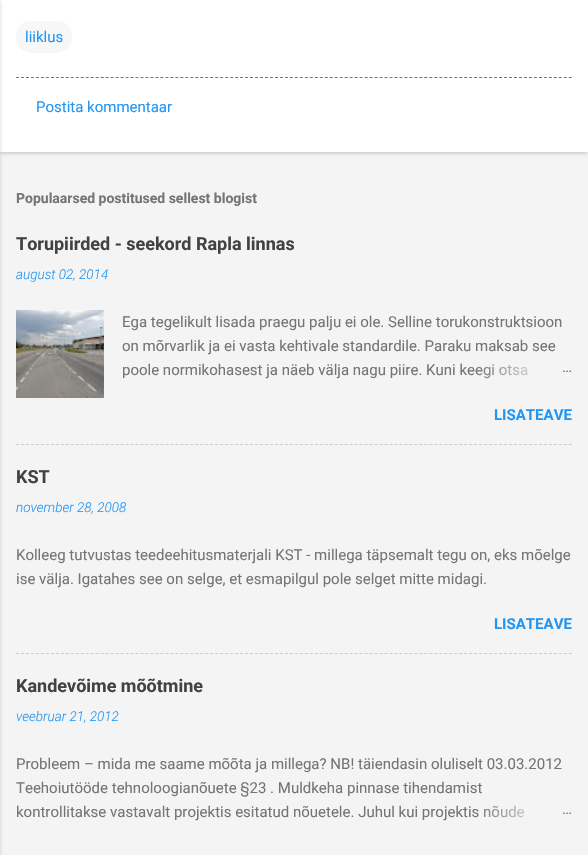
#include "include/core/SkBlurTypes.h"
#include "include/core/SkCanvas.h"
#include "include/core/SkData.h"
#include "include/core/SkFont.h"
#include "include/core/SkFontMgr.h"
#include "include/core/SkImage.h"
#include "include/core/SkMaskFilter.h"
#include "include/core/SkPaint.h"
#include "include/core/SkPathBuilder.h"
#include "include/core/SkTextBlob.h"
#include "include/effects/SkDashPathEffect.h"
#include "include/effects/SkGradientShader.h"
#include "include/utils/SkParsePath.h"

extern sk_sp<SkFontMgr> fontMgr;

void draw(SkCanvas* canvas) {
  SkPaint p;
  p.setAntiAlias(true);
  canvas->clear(SkColorSetRGB(244, 244, 244));
  p.setColor(SkColorSetARGB(77, 60, 64, 67));
  p.setMaskFilter(SkMaskFilter::MakeBlur(kNormal_SkBlurStyle, 2));
  canvas->drawRect(SkRect::MakeLTRB(0, -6, 588, 153), p);
  p.setMaskFilter(nullptr);
  p.setColor(SK_ColorWHITE);
  canvas->drawRect(SkRect::MakeLTRB(0, 0, 588, 152), p);
  p.setColor(SkColorSetARGB(26, 0, 0, 0));
  p.setMaskFilter(SkMaskFilter::MakeBlur(kNormal_SkBlurStyle, 1.5f));
  canvas->drawRect(SkRect::MakeLTRB(-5, 1, 1, 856), p);
  p.setMaskFilter(nullptr);
  p.setColor(SkColorSetRGB(247, 247, 247));
  canvas->drawRoundRect(SkRect::MakeLTRB(16, 21, 72, 53), 15, 15, p);
  p.setStyle(SkPaint::kStroke_Style);
  p.setStrokeWidth(1);
  p.setColor(SkColorSetRGB(117, 117, 117));
  p.setPathEffect(SkDashPathEffect::Make({{3, 1.98f}}, 0));
  canvas->drawPath(SkPathBuilder().moveTo(16, 77.5f).lineTo(572, 77.5f).detach(), p);
  p.setPathEffect(nullptr);
  canvas->drawImageRect(SkImages::DeferredFromEncodedData(SkData::MakeFromFileName("images/1.png")), SkRect::MakeLTRB(16, 310, 104, 398), SkSamplingOptions());
  p.setColor(SkColorSetRGB(204, 204, 204));
  p.setPathEffect(SkDashPathEffect::Make({{3, 1.98f}}, 0));
  canvas->drawPath(SkPathBuilder().moveTo(16, 444.5f).lineTo(572, 444.5f).detach(), p);
  p.setPathEffect(nullptr);
  p.setPathEffect(SkDashPathEffect::Make({{3, 1.98f}}, 0));
  canvas->drawPath(SkPathBuilder().moveTo(16, 653.5f).lineTo(572, 653.5f).detach(), p);
  p.setPathEffect(nullptr);
  SkFont font1(fontMgr->matchFamilyStyle("Roboto", SkFontStyle::Normal()), 15);
  font1.setSubpixel(true);
  p.setStyle(SkPaint::kFill_Style);
  p.setColor(SkColorSetRGB(33, 150, 243));
  canvas->drawString("liiklus", 25, 42, font1, p);
  canvas->drawString("Postita kommentaar", 36, 112, font1, p);
  SkFont font2(fontMgr->matchFamilyStyle("Roboto", SkFontStyle::Bold()), 14);
  font2.setSubpixel(true);
  p.setColor(SkColorSetRGB(117, 117, 117));
  canvas->drawString("Populaarsed postitused sellest blogist", 16, 203, font2, p);
  SkFont font3(fontMgr->matchFamilyStyle("Roboto", SkFontStyle::Bold()), 18);
  font3.setSubpixel(true);
  p.setColor(SkColorSetRGB(66, 66, 66));
  canvas->drawString("Torupiirded - seekord Rapla linnas", 16, 250, font3, p);
  SkFont font4(fontMgr->matchFamilyStyle("Roboto", SkFontStyle(300, SkFontStyle::kNormal_Width, SkFontStyle::kItalic_Slant)), 13.5f);
  font4.setSubpixel(true);
  p.setColor(SkColorSetRGB(33, 150, 243));
  canvas->drawString("august 02, 2014", 16, 279, font4, p);
  p.setColor(SkColorSetRGB(117, 117, 117));
  canvas->drawString("Ega tegelikult lisada praegu palju ei ole. Selline torukonstruktsioon", 122, 327, font1, p);
  canvas->drawString("on mõrvarlik ja ei vasta kehtivale standardile. Paraku maksab see", 122, 351, font1, p);
  canvas->drawString("poole normikohasest ja näeb välja nagu piire. Kuni keegi otsa", 122, 375, font1, p);
  {
    const SkColor colors[] = {SkColorSetRGB(244, 244, 244), SkColorSetRGB(244, 244, 244), SkColorSetARGB(0, 244, 244, 244)};
    const float stops[] = {0, 0.2f, 1};
    const SkPoint ends[] = {{572, 370}, {476, 370}};
    p.setShader(SkGradientShader::MakeLinear(ends, colors, stops, 3, SkTileMode::kClamp));
    p.setAlpha(255);
  }
  canvas->drawRect(SkRect::MakeLTRB(478, 364, 527, 378), p);
  p.setShader(nullptr);
  p.setColor(SkColorSetRGB(117, 117, 117));
  canvas->drawString("…", 562, 372, font1, p);
  SkFont font5(fontMgr->matchFamilyStyle("Roboto", SkFontStyle::Bold()), 15);
  font5.setSubpixel(true);
  p.setColor(SkColorSetRGB(33, 150, 243));
  canvas->drawString("LISATEAVE", 494, 420, font5, p);
  p.setColor(SkColorSetRGB(66, 66, 66));
  canvas->drawString("KST", 16, 483, font3, p);
  p.setColor(SkColorSetRGB(33, 150, 243));
  canvas->drawString("november 28, 2008", 16, 512, font4, p);
  p.setColor(SkColorSetRGB(117, 117, 117));
  canvas->drawString("Kolleeg tutvustas teedeehitusmaterjali KST - millega täpsemalt tegu on, eks mõelge", 16, 560, font1, p);
  canvas->drawString("ise välja. Igatahes see on selge, et esmapilgul pole selget mitte midagi.", 16, 584, font1, p);
  p.setColor(SkColorSetRGB(33, 150, 243));
  canvas->drawString("LISATEAVE", 494, 629, font5, p);
  p.setColor(SkColorSetRGB(66, 66, 66));
  canvas->drawString("Kandevõime mõõtmine", 16, 692, font3, p);
  p.setColor(SkColorSetRGB(33, 150, 243));
  canvas->drawString("veebruar 21, 2012", 16, 721, font4, p);
  p.setColor(SkColorSetRGB(117, 117, 117));
  canvas->drawString("Probleem – mida me saame mõõta ja millega? NB! täiendasin oluliselt 03.03.2012", 16, 769, font1, p);
  canvas->drawString("Teehoiutööde tehnoloogianõuete §23 . Muldkeha pinnase tihendamist", 16, 793, font1, p);
  canvas->drawString("kontrollitakse vastavalt projektis esitatud nõuetele. Juhul kui projektis nõude", 16, 817, font1, p);
  {
    const SkColor colors[] = {SkColorSetRGB(244, 244, 244), SkColorSetRGB(244, 244, 244), SkColorSetARGB(0, 244, 244, 244)};
    const float stops[] = {0, 0.2f, 1};
    const SkPoint ends[] = {{572, 812}, {476, 812}};
    p.setShader(SkGradientShader::MakeLinear(ends, colors, stops, 3, SkTileMode::kClamp));
    p.setAlpha(255);
  }
  canvas->drawRect(SkRect::MakeLTRB(484, 805, 524, 818), p);
  p.setShader(nullptr);
  p.setColor(SkColorSetRGB(117, 117, 117));
  canvas->drawString("…", 562, 814, font1, p);
}
